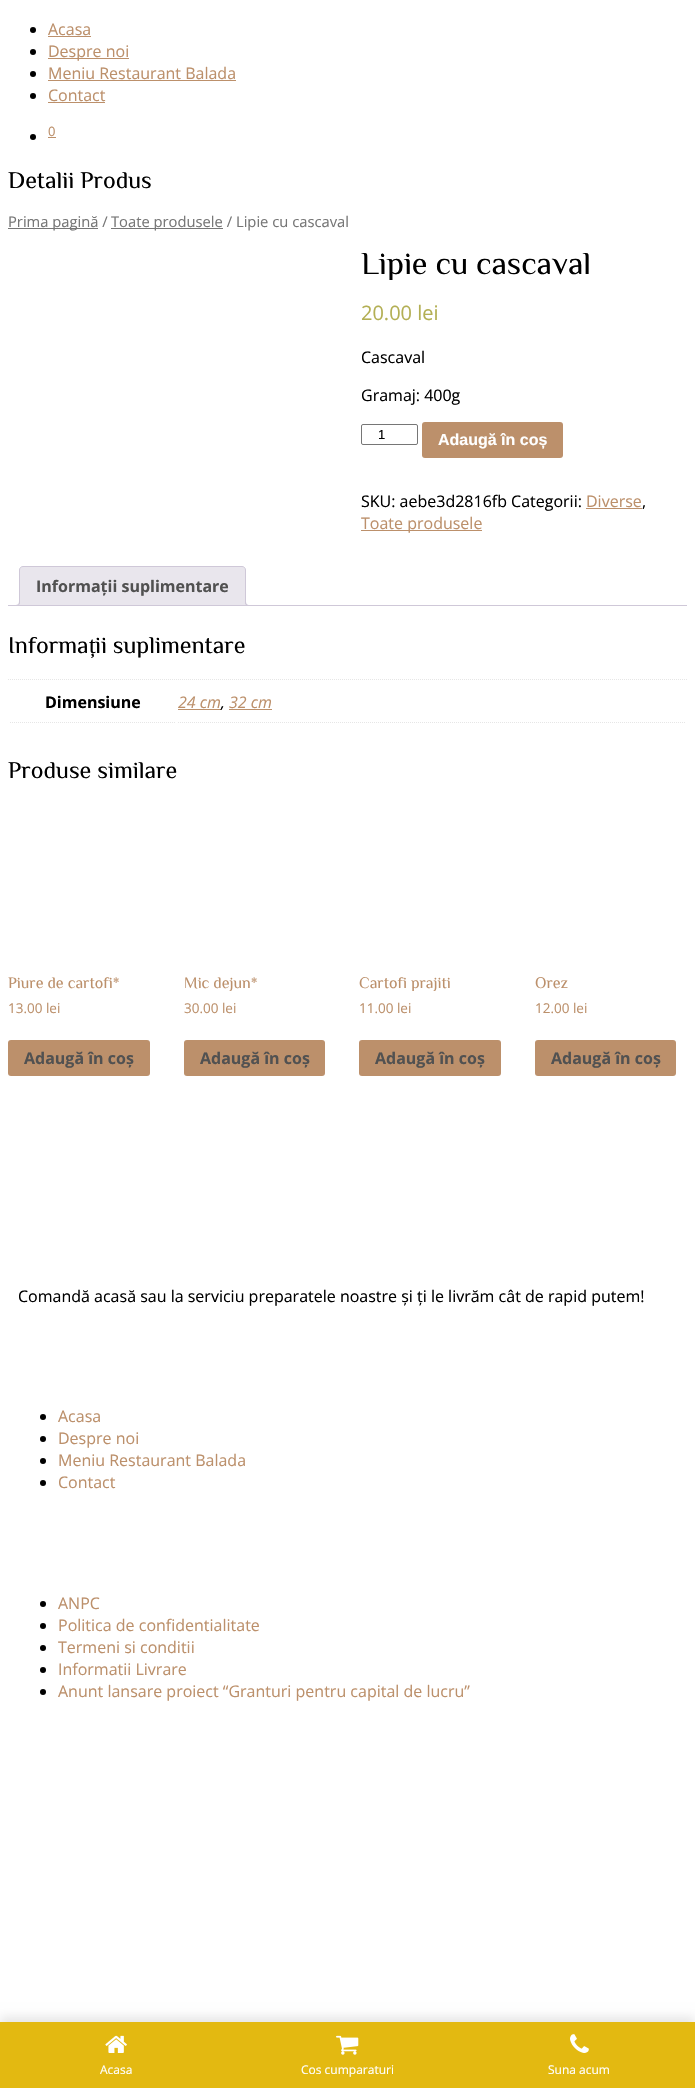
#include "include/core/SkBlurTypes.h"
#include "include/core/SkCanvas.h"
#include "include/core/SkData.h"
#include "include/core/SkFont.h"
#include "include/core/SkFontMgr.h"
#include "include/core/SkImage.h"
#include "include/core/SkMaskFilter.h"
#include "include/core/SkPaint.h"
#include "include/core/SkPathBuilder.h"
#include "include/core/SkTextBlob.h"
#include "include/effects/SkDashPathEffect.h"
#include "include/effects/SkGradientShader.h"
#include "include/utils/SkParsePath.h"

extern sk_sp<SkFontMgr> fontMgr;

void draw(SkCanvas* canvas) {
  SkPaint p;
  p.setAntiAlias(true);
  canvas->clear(SK_ColorWHITE);
  p.setColor(SK_ColorBLACK);
  canvas->drawCircle(33, 30, 3, p);
  p.setColor(SkColorSetRGB(188, 144, 107));
  canvas->drawRect(SkRect::MakeLTRB(48, 36, 91, 37), p);
  p.setColor(SK_ColorBLACK);
  canvas->drawCircle(33, 52, 3, p);
  p.setColor(SkColorSetRGB(188, 144, 107));
  canvas->drawRect(SkRect::MakeLTRB(48, 58, 129, 59), p);
  p.setColor(SK_ColorBLACK);
  canvas->drawCircle(33, 74, 3, p);
  p.setColor(SkColorSetRGB(188, 144, 107));
  canvas->drawRect(SkRect::MakeLTRB(48, 80, 236, 81), p);
  p.setColor(SK_ColorBLACK);
  canvas->drawCircle(33, 96, 3, p);
  p.setColor(SkColorSetRGB(188, 144, 107));
  canvas->drawRect(SkRect::MakeLTRB(48, 102, 105, 103), p);
  p.setColor(SK_ColorBLACK);
  canvas->drawCircle(33, 137, 3, p);
  p.setColor(SkColorSetRGB(188, 144, 107));
  canvas->drawRect(SkRect::MakeLTRB(48, 137, 56, 138), p);
  p.setColor(SkColorSetRGB(118, 118, 118));
  canvas->drawRect(SkRect::MakeLTRB(8, 228, 98, 229), p);
  canvas->drawRect(SkRect::MakeLTRB(111, 228, 223, 229), p);
  p.setStyle(SkPaint::kStroke_Style);
  p.setStrokeWidth(1);
  canvas->drawRoundRect(SkRect::MakeLTRB(361.5f, 424.5f, 417.5f, 444.5f), 1.5f, 1.5f, p);
  p.setStyle(SkPaint::kFill_Style);
  p.setColor(SkColorSetRGB(188, 144, 107));
  canvas->drawRoundRect(SkRect::MakeLTRB(422, 422, 563, 458), 3, 3, p);
  canvas->drawRect(SkRect::MakeLTRB(586, 508, 642, 509), p);
  canvas->drawRect(SkRect::MakeLTRB(361, 530, 482, 531), p);
  p.setColor(SkColorSetRGB(233, 230, 237));
  canvas->drawPath(SkPathBuilder().moveTo(23, 566.5f).lineTo(242, 566.5f).cubicTo(244, 566.5f, 245.5f, 568, 245.5f, 570).lineTo(245.5f, 605.5f).lineTo(19.5f, 605.5f).lineTo(19.5f, 570).cubicTo(19.5f, 568, 21, 566.5f, 23, 566.5f).close().detach(), p);
  p.setStyle(SkPaint::kStroke_Style);
  p.setColor(SkColorSetRGB(207, 200, 216));
  canvas->drawPath(SkPathBuilder().moveTo(23, 566.5f).lineTo(242, 566.5f).cubicTo(244, 566.5f, 245.5f, 568, 245.5f, 570).lineTo(245.5f, 605.5f).lineTo(19.5f, 605.5f).lineTo(19.5f, 570).cubicTo(19.5f, 568, 21, 566.5f, 23, 566.5f).close().detach(), p);
  canvas->save();
  canvas->clipRect(SkRect::MakeLTRB(8, 566, 687, 606));
  p.setStyle(SkPaint::kFill_Style);
  p.setColor(SkColorSetRGB(233, 230, 237));
  canvas->drawPath(SkPathBuilder().moveTo(17, 606).lineTo(17, 608).cubicTo(20.5f, 608, 22, 606.5f, 22, 603).lineTo(20, 603).cubicTo(19.5f, 604.5f, 18.5f, 605.5f, 17, 606).close().detach(), p);
  canvas->restore();
  p.setColor(SkColorSetRGB(207, 200, 216));
  canvas->drawPath(SkPathBuilder(SkPathFillType::kEvenOdd).moveTo(15, 601).lineTo(20, 601).cubicTo(20, 604.5f, 18.5f, 606, 15, 606).close().moveTo(15, 601).lineTo(19, 601).cubicTo(19, 604, 18, 605, 15, 605).close().detach(), p);
  canvas->save();
  canvas->clipRect(SkRect::MakeLTRB(8, 566, 687, 606));
  p.setColor(SkColorSetRGB(233, 230, 237));
  canvas->drawPath(SkPathBuilder().moveTo(243, 603).cubicTo(243, 606.5f, 244.5f, 608, 248, 608).lineTo(248, 606).cubicTo(246.5f, 605.5f, 245.5f, 604.5f, 245, 603).close().detach(), p);
  canvas->restore();
  p.setColor(SkColorSetRGB(207, 200, 216));
  canvas->drawPath(SkPathBuilder(SkPathFillType::kEvenOdd).moveTo(245, 601).lineTo(250, 601).lineTo(250, 606).cubicTo(247.5f, 606, 245, 605, 245, 602).close().moveTo(246, 601).lineTo(250, 601).lineTo(250, 605).cubicTo(248, 605, 246, 604.5f, 246, 602).close().detach(), p);
  canvas->drawRect(SkRect::MakeLTRB(8, 605, 687, 606), p);
  p.setStyle(SkPaint::kStroke_Style);
  p.setColor(SkColorSetRGB(230, 230, 230));
  p.setPathEffect(SkDashPathEffect::Make({{1, 1}}, 0));
  canvas->drawPath(SkPathBuilder().moveTo(8, 679.5f).lineTo(687, 679.5f).detach(), p);
  p.setPathEffect(nullptr);
  p.setPathEffect(SkDashPathEffect::Make({{1, 1}}, 0));
  canvas->drawPath(SkPathBuilder().moveTo(10, 722.5f).lineTo(176, 722.5f).detach(), p);
  p.setPathEffect(nullptr);
  p.setPathEffect(SkDashPathEffect::Make({{1, 1}}, 0));
  canvas->drawPath(SkPathBuilder().moveTo(178, 722.5f).lineTo(685, 722.5f).detach(), p);
  p.setPathEffect(nullptr);
  p.setStyle(SkPaint::kFill_Style);
  p.setColor(SkColorSetRGB(188, 144, 107));
  canvas->drawRect(SkRect::MakeLTRB(178, 709, 221, 710), p);
  canvas->drawRect(SkRect::MakeLTRB(229, 709, 272, 710), p);
  canvas->drawRoundRect(SkRect::MakeLTRB(8, 1040, 150, 1076), 3, 3, p);
  canvas->drawRoundRect(SkRect::MakeLTRB(184, 1040, 325, 1076), 3, 3, p);
  canvas->drawRoundRect(SkRect::MakeLTRB(359, 1040, 501, 1076), 3, 3, p);
  canvas->drawRoundRect(SkRect::MakeLTRB(535, 1040, 676, 1076), 3, 3, p);
  p.setColor(SK_ColorBLACK);
  canvas->drawCircle(43, 1417, 3, p);
  canvas->drawCircle(43, 1439, 3, p);
  canvas->drawCircle(43, 1461, 3, p);
  canvas->drawCircle(43, 1483, 3, p);
  canvas->drawCircle(43, 1604, 3, p);
  canvas->drawCircle(43, 1626, 3, p);
  canvas->drawCircle(43, 1648, 3, p);
  canvas->drawCircle(43, 1670, 3, p);
  canvas->drawCircle(43, 1692, 3, p);
  p.setColor(SkColorSetARGB(26, 0, 0, 0));
  p.setMaskFilter(SkMaskFilter::MakeBlur(kNormal_SkBlurStyle, 5));
  canvas->drawRect(SkRect::MakeLTRB(0, 2017, 695, 2083), p);
  p.setMaskFilter(nullptr);
  p.setColor(SkColorSetRGB(227, 185, 17));
  canvas->drawRect(SkRect::MakeLTRB(0, 2022, 695, 2088), p);
  canvas->drawImageRect(SkImages::DeferredFromEncodedData(SkData::MakeFromFileName("images/1.png")), SkRect::MakeLTRB(105, 2035, 127, 2053), SkSamplingOptions());
  canvas->drawImageRect(SkImages::DeferredFromEncodedData(SkData::MakeFromFileName("images/2.png")), SkRect::MakeLTRB(336, 2035, 359, 2055), SkSamplingOptions());
  canvas->drawImageRect(SkImages::DeferredFromEncodedData(SkData::MakeFromFileName("images/3.png")), SkRect::MakeLTRB(570, 2034, 589, 2053), SkSamplingOptions());
  SkFont font1(fontMgr->matchFamilyStyle("Open Sans", SkFontStyle::Normal()), 16);
  font1.setSubpixel(true);
  p.setColor(SkColorSetRGB(188, 144, 107));
  canvas->drawString("Acasa", 48, 35, font1, p);
  canvas->drawString("Despre noi", 48, 57, font1, p);
  canvas->drawString("Meniu Restaurant Balada", 48, 79, font1, p);
  canvas->drawString("Contact", 48, 101, font1, p);
  SkFont font2(fontMgr->matchFamilyStyle("Open Sans", SkFontStyle::Normal()), 13);
  font2.setSubpixel(true);
  canvas->drawString("0", 48, 136, font2, p);
  SkFont font3(fontMgr->matchFamilyStyle("ZCOOL XiaoWei", SkFontStyle::Normal()), 24);
  font3.setSubpixel(true);
  p.setColor(SK_ColorBLACK);
  canvas->drawString("Detalii Produs", 8, 188, font3, p);
  SkFont font4(fontMgr->matchFamilyStyle("Open Sans", SkFontStyle::Normal()), 14.75f);
  font4.setSubpixel(true);
  p.setColor(SkColorSetRGB(118, 118, 118));
  canvas->drawString("Prima pagină /", 8, 227, font4, p);
  canvas->drawString("Toate produsele / Lipie cu cascaval", 111, 227, font4, p);
  SkFont font5(fontMgr->matchFamilyStyle("ZCOOL XiaoWei", SkFontStyle::Normal()), 32);
  font5.setSubpixel(true);
  p.setColor(SK_ColorBLACK);
  canvas->drawString("Lipie cu cascaval", 361, 274, font5, p);
  SkFont font6(fontMgr->matchFamilyStyle("Open Sans", SkFontStyle::Normal()), 20);
  font6.setSubpixel(true);
  p.setColor(SkColorSetRGB(179, 175, 84));
  canvas->drawString("20.00 lei", 361, 320, font6, p);
  p.setColor(SK_ColorBLACK);
  canvas->drawString("Cascaval", 361, 363, font1, p);
  canvas->drawString("Gramaj: 400g", 361, 401, font1, p);
  SkFont font7(fontMgr->matchFamilyStyle("Liberation Sans", SkFontStyle::Normal()), 13);
  font7.setSubpixel(true);
  canvas->drawString("1", 378, 439, font7, p);
  SkFont font8(fontMgr->matchFamilyStyle("Liberation Sans", SkFontStyle::Bold()), 16);
  font8.setSubpixel(true);
  p.setColor(SK_ColorWHITE);
  canvas->drawString("Adaugă în coș", 438, 445, font8, p);
  p.setColor(SK_ColorBLACK);
  canvas->drawString("SKU: aebe3d2816fb Categorii:", 361, 507, font1, p);
  p.setColor(SkColorSetRGB(188, 144, 107));
  canvas->drawString("Diverse", 586, 507, font1, p);
  p.setColor(SK_ColorBLACK);
  canvas->drawString(",", 642, 507, font1, p);
  p.setColor(SkColorSetRGB(188, 144, 107));
  canvas->drawString("Toate produsele", 361, 529, font1, p);
  SkFont font9(fontMgr->matchFamilyStyle("Open Sans", SkFontStyle::Bold()), 16);
  font9.setSubpixel(true);
  p.setColor(SkColorSetRGB(81, 81, 81));
  canvas->drawString("Informații suplimentare", 36, 592, font9, p);
  p.setColor(SK_ColorBLACK);
  canvas->drawString("Informa", 8, 653, font3, p);
  SkFont font10(fontMgr->matchFamilyStyle("Liberation Serif", SkFontStyle::Normal()), 24);
  font10.setSubpixel(true);
  canvas->drawString("ț", 89, 653, font10, p);
  canvas->drawString("ii suplimentare", 95, 653, font3, p);
  canvas->drawString("Dimensiune", 45, 708, font9, p);
  SkFont font11(fontMgr->matchFamilyStyle("Open Sans", SkFontStyle::Italic()), 16);
  font11.setSubpixel(true);
  p.setColor(SkColorSetRGB(188, 144, 107));
  canvas->drawString("24 cm", 178, 708, font11, p);
  p.setColor(SK_ColorBLACK);
  canvas->drawString(",", 221, 708, font11, p);
  p.setColor(SkColorSetRGB(188, 144, 107));
  canvas->drawString("32 cm", 229, 708, font11, p);
  p.setColor(SK_ColorBLACK);
  canvas->drawString("Produse similare", 8, 778, font3, p);
  SkFont font12(fontMgr->matchFamilyStyle("ZCOOL XiaoWei", SkFontStyle::Normal()), 16);
  font12.setSubpixel(true);
  p.setColor(SkColorSetRGB(188, 144, 107));
  canvas->drawString("Piure de cartofi*", 8, 988, font12, p);
  SkFont font13(fontMgr->matchFamilyStyle("Open Sans", SkFontStyle::Normal()), 13.5f);
  font13.setSubpixel(true);
  canvas->drawString("13.00 lei", 8, 1013, font13, p);
  p.setColor(SkColorSetRGB(81, 81, 81));
  canvas->drawString("Adaugă în coș", 24, 1064, font9, p);
  p.setColor(SkColorSetRGB(188, 144, 107));
  canvas->drawString("Mic dejun*", 184, 988, font12, p);
  canvas->drawString("30.00 lei", 184, 1013, font13, p);
  p.setColor(SkColorSetRGB(81, 81, 81));
  canvas->drawString("Adaugă în coș", 200, 1064, font9, p);
  p.setColor(SkColorSetRGB(188, 144, 107));
  canvas->drawString("Cartofi prajiti", 359, 988, font12, p);
  canvas->drawString("11.00 lei", 359, 1013, font13, p);
  p.setColor(SkColorSetRGB(81, 81, 81));
  canvas->drawString("Adaugă în coș", 375, 1064, font9, p);
  p.setColor(SkColorSetRGB(188, 144, 107));
  canvas->drawString("Orez", 535, 988, font12, p);
  canvas->drawString("12.00 lei", 535, 1013, font13, p);
  p.setColor(SkColorSetRGB(81, 81, 81));
  canvas->drawString("Adaugă în coș", 551, 1064, font9, p);
  p.setColor(SK_ColorBLACK);
  canvas->drawString("Comandă acasă sau la serviciu preparatele noastre și ți le livrăm cât de rapid putem!", 18, 1302, font1, p);
  p.setColor(SkColorSetRGB(188, 144, 107));
  canvas->drawString("Acasa", 58, 1422, font1, p);
  canvas->drawString("Despre noi", 58, 1444, font1, p);
  canvas->drawString("Meniu Restaurant Balada", 58, 1466, font1, p);
  canvas->drawString("Contact", 58, 1488, font1, p);
  canvas->drawString("ANPC", 58, 1609, font1, p);
  canvas->drawString("Politica de confidentialitate", 58, 1631, font1, p);
  canvas->drawString("Termeni si conditii", 58, 1653, font1, p);
  canvas->drawString("Informatii Livrare", 58, 1675, font1, p);
  canvas->drawString("Anunt lansare proiect “Granturi pentru capital de lucru”", 58, 1697, font1, p);
  SkFont font14(fontMgr->matchFamilyStyle("Open Sans", SkFontStyle::Normal()), 12);
  font14.setSubpixel(true);
  p.setColor(SK_ColorWHITE);
  canvas->drawString("Acasa", 100, 2074, font14, p);
  canvas->drawString("Cos cumparaturi", 301, 2074, font14, p);
  canvas->drawString("Suna acum", 548, 2074, font14, p);
}
